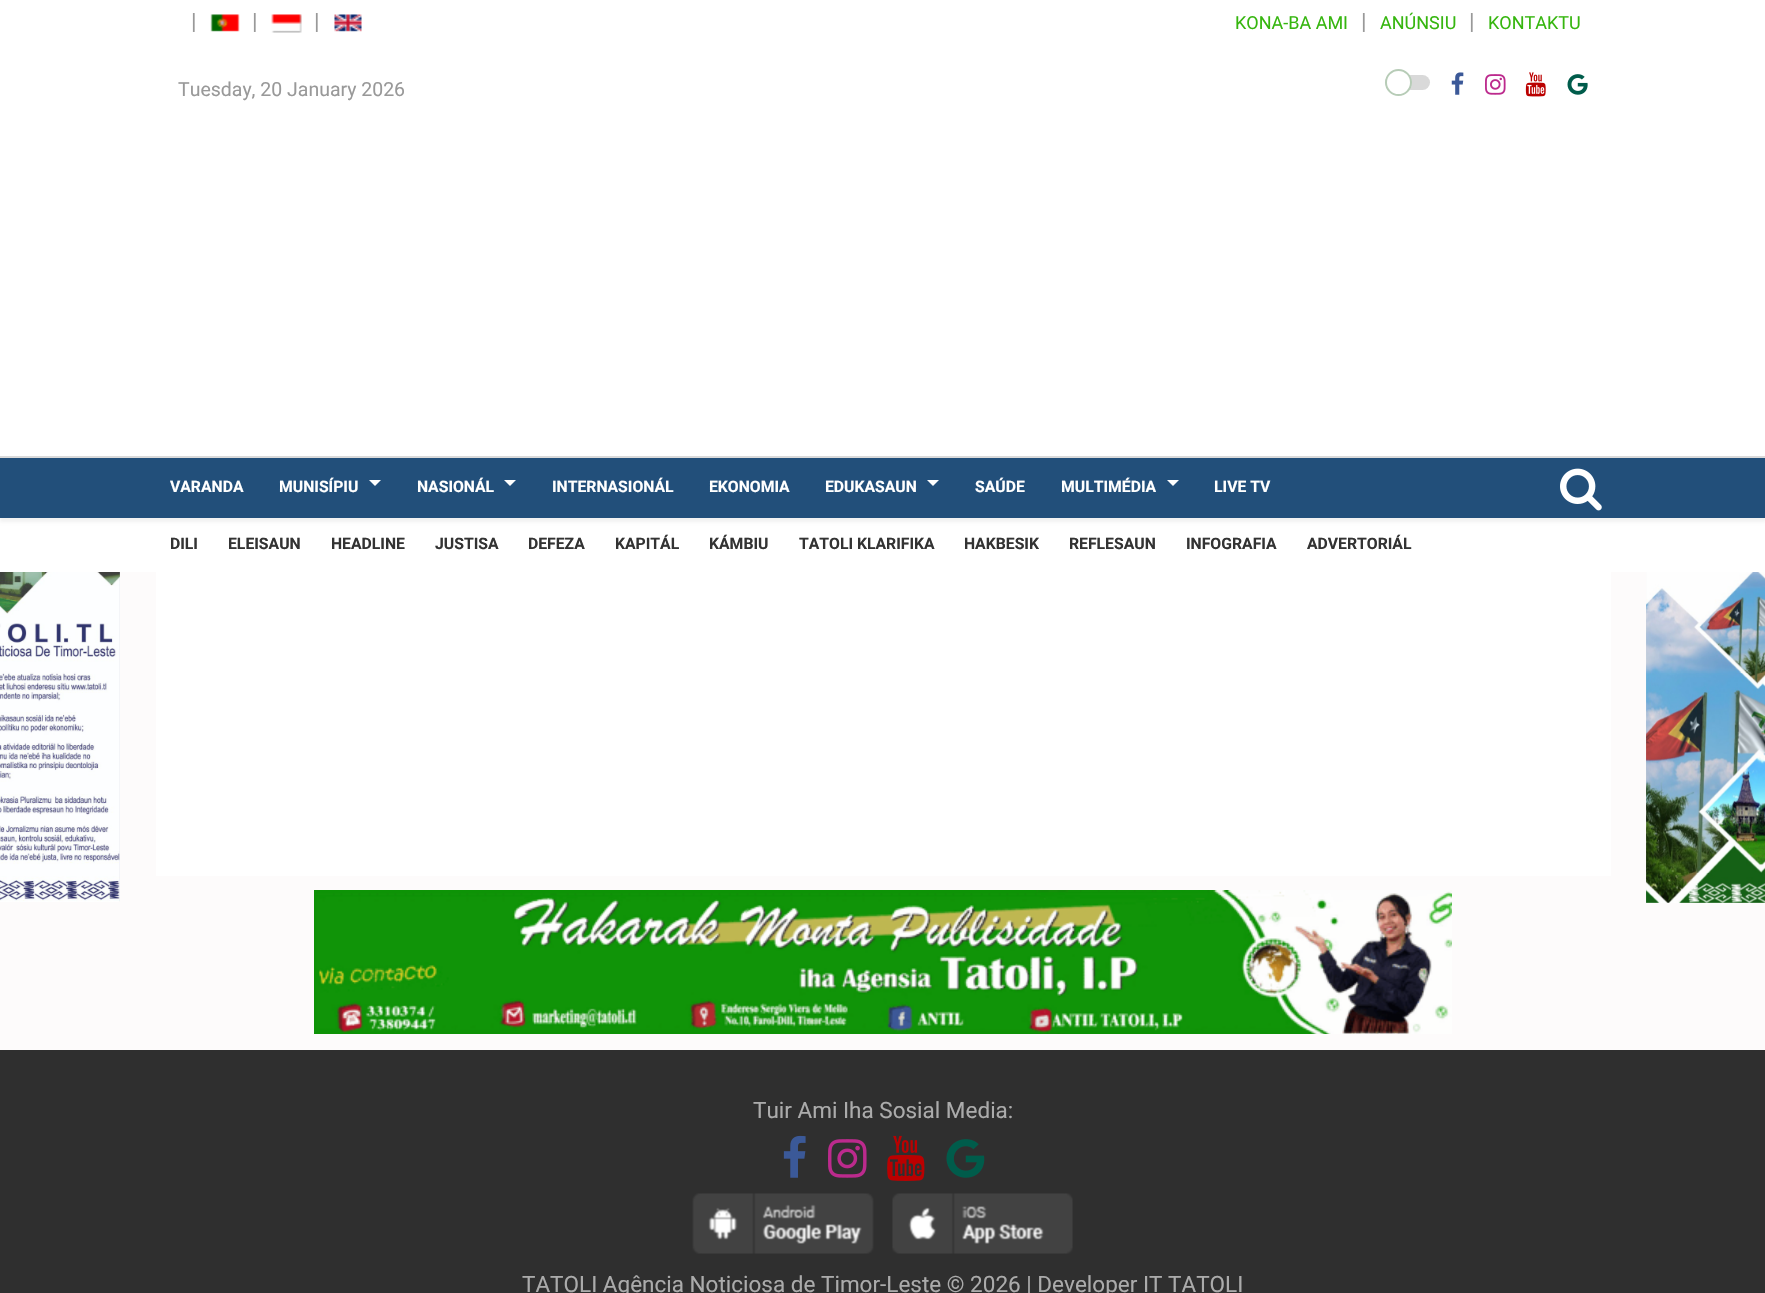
#include "include/core/SkBlurTypes.h"
#include "include/core/SkCanvas.h"
#include "include/core/SkData.h"
#include "include/core/SkFont.h"
#include "include/core/SkFontMgr.h"
#include "include/core/SkImage.h"
#include "include/core/SkMaskFilter.h"
#include "include/core/SkPaint.h"
#include "include/core/SkPathBuilder.h"
#include "include/core/SkTextBlob.h"
#include "include/effects/SkDashPathEffect.h"
#include "include/effects/SkGradientShader.h"
#include "include/utils/SkParsePath.h"

extern sk_sp<SkFontMgr> fontMgr;

void draw(SkCanvas* canvas) {
  SkPaint p;
  p.setAntiAlias(true);
  canvas->clear(SkColorSetRGB(253, 251, 251));
  p.setColor(SK_ColorWHITE);
  canvas->drawRect(SkRect::MakeLTRB(0, 0, 1765, 456), p);
  p.setColor(SkColorSetRGB(218, 218, 218));
  canvas->drawRect(SkRect::MakeLTRB(0, 456, 1765, 458), p);
  canvas->drawImageRect(SkImages::DeferredFromEncodedData(SkData::MakeFromFileName("images/1.png")), SkRect::MakeLTRB(210, 14, 240, 32), SkSamplingOptions());
  canvas->drawImageRect(SkImages::DeferredFromEncodedData(SkData::MakeFromFileName("images/2.png")), SkRect::MakeLTRB(271, 14, 302, 33), SkSamplingOptions());
  canvas->drawImageRect(SkImages::DeferredFromEncodedData(SkData::MakeFromFileName("images/3.png")), SkRect::MakeLTRB(334, 14, 362, 32), SkSamplingOptions());
  p.setColor(SkColorSetRGB(217, 217, 217));
  canvas->drawRoundRect(SkRect::MakeLTRB(1385, 75, 1430, 90), 7.5f, 7.5f, p);
  p.setColor(SK_ColorWHITE);
  canvas->drawCircle(1398.5f, 82.5f, 13.5f, p);
  p.setStyle(SkPaint::kStroke_Style);
  p.setStrokeWidth(2);
  p.setColor(SkColorSetARGB(87, 44, 105, 43));
  canvas->drawCircle(1398.5f, 82.5f, 12.5f, p);
  canvas->drawImageRect(SkImages::DeferredFromEncodedData(SkData::MakeFromFileName("images/4.png")), SkRect::MakeLTRB(1451, 72, 1464, 95), SkSamplingOptions());
  canvas->drawImageRect(SkImages::DeferredFromEncodedData(SkData::MakeFromFileName("images/5.png")), SkRect::MakeLTRB(1485, 74, 1506, 95), SkSamplingOptions());
  canvas->drawImageRect(SkImages::DeferredFromEncodedData(SkData::MakeFromFileName("images/6.png")), SkRect::MakeLTRB(1525, 72, 1546, 97), SkSamplingOptions());
  canvas->drawImageRect(SkImages::DeferredFromEncodedData(SkData::MakeFromFileName("images/7.png")), SkRect::MakeLTRB(1567, 74, 1588, 95), SkSamplingOptions());
  p.setStyle(SkPaint::kFill_Style);
  p.setColor(SK_ColorWHITE);
  canvas->drawRect(SkRect::MakeLTRB(0, 518, 1765, 572), p);
  p.setColor(SkColorSetARGB(13, 0, 0, 0));
  p.setMaskFilter(SkMaskFilter::MakeBlur(kNormal_SkBlurStyle, 1.5f));
  canvas->drawRect(SkRect::MakeLTRB(0, 462, 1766, 522), p);
  p.setMaskFilter(nullptr);
  p.setColor(SkColorSetRGB(34, 79, 122));
  canvas->drawRect(SkRect::MakeLTRB(0, 458, 1765, 518), p);
  p.setColor(SK_ColorWHITE);
  canvas->drawPath(SkPathBuilder().moveTo(369, 480).lineTo(381, 480).lineTo(375, 486).close().detach(), p);
  canvas->drawPath(SkPathBuilder().moveTo(504, 480).lineTo(516, 480).lineTo(510, 486).close().detach(), p);
  canvas->drawPath(SkPathBuilder().moveTo(927, 480).lineTo(939, 480).lineTo(933, 486).close().detach(), p);
  canvas->drawPath(SkPathBuilder().moveTo(1167, 480).lineTo(1179, 480).lineTo(1173, 486).close().detach(), p);
  canvas->drawImageRect(SkImages::DeferredFromEncodedData(SkData::MakeFromFileName("images/8.png")), SkRect::MakeLTRB(1560, 468, 1602, 511), SkSamplingOptions());
  canvas->drawRect(SkRect::MakeLTRB(0, 901, 120, 902), p);
  canvas->drawImageRect(SkImages::DeferredFromEncodedData(SkData::MakeFromFileName("images/9.png")), SkRect::MakeLTRB(0, 572, 120, 902), SkSamplingOptions());
  canvas->drawRect(SkRect::MakeLTRB(156, 572, 1611, 876), p);
  canvas->drawImageRect(SkImages::DeferredFromEncodedData(SkData::MakeFromFileName("images/10.png")), SkRect::MakeLTRB(1646, 572, 1765, 903), SkSamplingOptions());
  canvas->drawImageRect(SkImages::DeferredFromEncodedData(SkData::MakeFromFileName("images/11.png")), SkRect::MakeLTRB(314, 890, 1452, 1034), SkSamplingOptions());
  p.setColor(SkColorSetRGB(47, 47, 47));
  canvas->drawRect(SkRect::MakeLTRB(0, 1050, 1765, 1293), p);
  canvas->drawImageRect(SkImages::DeferredFromEncodedData(SkData::MakeFromFileName("images/12.png")), SkRect::MakeLTRB(783, 1135, 806, 1178), SkSamplingOptions());
  canvas->drawImageRect(SkImages::DeferredFromEncodedData(SkData::MakeFromFileName("images/13.png")), SkRect::MakeLTRB(828, 1139, 867, 1178), SkSamplingOptions());
  canvas->drawImageRect(SkImages::DeferredFromEncodedData(SkData::MakeFromFileName("images/14.png")), SkRect::MakeLTRB(887, 1135, 925, 1181), SkSamplingOptions());
  canvas->drawImageRect(SkImages::DeferredFromEncodedData(SkData::MakeFromFileName("images/15.png")), SkRect::MakeLTRB(946, 1139, 985, 1178), SkSamplingOptions());
  canvas->drawImageRect(SkImages::DeferredFromEncodedData(SkData::MakeFromFileName("images/16.png")), SkRect::MakeLTRB(692, 1193, 874, 1254), SkSamplingOptions());
  canvas->drawImageRect(SkImages::DeferredFromEncodedData(SkData::MakeFromFileName("images/17.png")), SkRect::MakeLTRB(892, 1193, 1073, 1254), SkSamplingOptions());
  SkFont font1(fontMgr->matchFamilyStyle("Roboto", SkFontStyle::Normal()), 22.5f);
  font1.setSubpixel(true);
  p.setColor(SkColorSetRGB(153, 153, 153));
  canvas->drawString("|", 191, 29, font1, p);
  canvas->drawString("|", 252, 29, font1, p);
  canvas->drawString("|", 314, 29, font1, p);
  SkFont font2(fontMgr->matchFamilyStyle("Roboto", SkFontStyle::Normal()), 19.5f);
  font2.setSubpixel(true);
  canvas->drawString("Tuesday, 20 January 2026", 178, 96, font2, p);
  SkFont font3(fontMgr->matchFamilyStyle("Roboto", SkFontStyle::Normal()), 18);
  font3.setSubpixel(true);
  p.setColor(SkColorSetRGB(54, 182, 15));
  canvas->drawString("KONA-BA AMI", 1235, 29, font3, p);
  p.setColor(SkColorSetRGB(153, 153, 153));
  canvas->drawString("|", 1361, 29, font1, p);
  p.setColor(SkColorSetRGB(54, 182, 15));
  canvas->drawString("ANÚNSIU", 1380, 29, font3, p);
  p.setColor(SkColorSetRGB(153, 153, 153));
  canvas->drawString("|", 1469, 29, font1, p);
  p.setColor(SkColorSetRGB(54, 182, 15));
  canvas->drawString("KONTAKTU", 1488, 29, font3, p);
  SkFont font4(fontMgr->matchFamilyStyle("Roboto", SkFontStyle::Bold()), 15.75f);
  font4.setSubpixel(true);
  p.setColor(SK_ColorWHITE);
  canvas->drawString("VARANDA", 170, 492, font4, p);
  canvas->drawString("MUNISÍPIU", 279, 492, font4, p);
  canvas->drawString("NASIONÁL", 417, 492, font4, p);
  canvas->drawString("INTERNASIONÁL", 552, 492, font4, p);
  canvas->drawString("EKONOMIA", 709, 492, font4, p);
  canvas->drawString("EDUKASAUN", 825, 492, font4, p);
  canvas->drawString("SAÚDE", 975, 492, font4, p);
  canvas->drawString("MULTIMÉDIA", 1061, 492, font4, p);
  canvas->drawString("LIVE TV", 1214, 492, font4, p);
  p.setColor(SkColorSetRGB(51, 51, 51));
  canvas->drawString("DILI", 170, 549, font4, p);
  canvas->drawString("ELEISAUN", 228, 549, font4, p);
  canvas->drawString("HEADLINE", 331, 549, font4, p);
  canvas->drawString("JUSTISA", 435, 549, font4, p);
  canvas->drawString("DEFEZA", 528, 549, font4, p);
  canvas->drawString("KAPITÁL", 615, 549, font4, p);
  canvas->drawString("KÁMBIU", 709, 549, font4, p);
  canvas->drawString("TATOLI KLARIFIKA", 799, 549, font4, p);
  canvas->drawString("HAKBESIK", 964, 549, font4, p);
  canvas->drawString("REFLESAUN", 1069, 549, font4, p);
  canvas->drawString("INFOGRAFIA", 1186, 549, font4, p);
  canvas->drawString("ADVERTORIÁL", 1307, 549, font4, p);
  p.setColor(SkColorSetRGB(171, 171, 171));
  canvas->drawString("Tuir Ami Iha Sosial Media:", 753, 1118, font1, p);
  canvas->drawString("TATOLI Agência Noticiosa de Timor-Leste © 2026 | Developer IT TATOLI", 522, 1292, font1, p);
}
